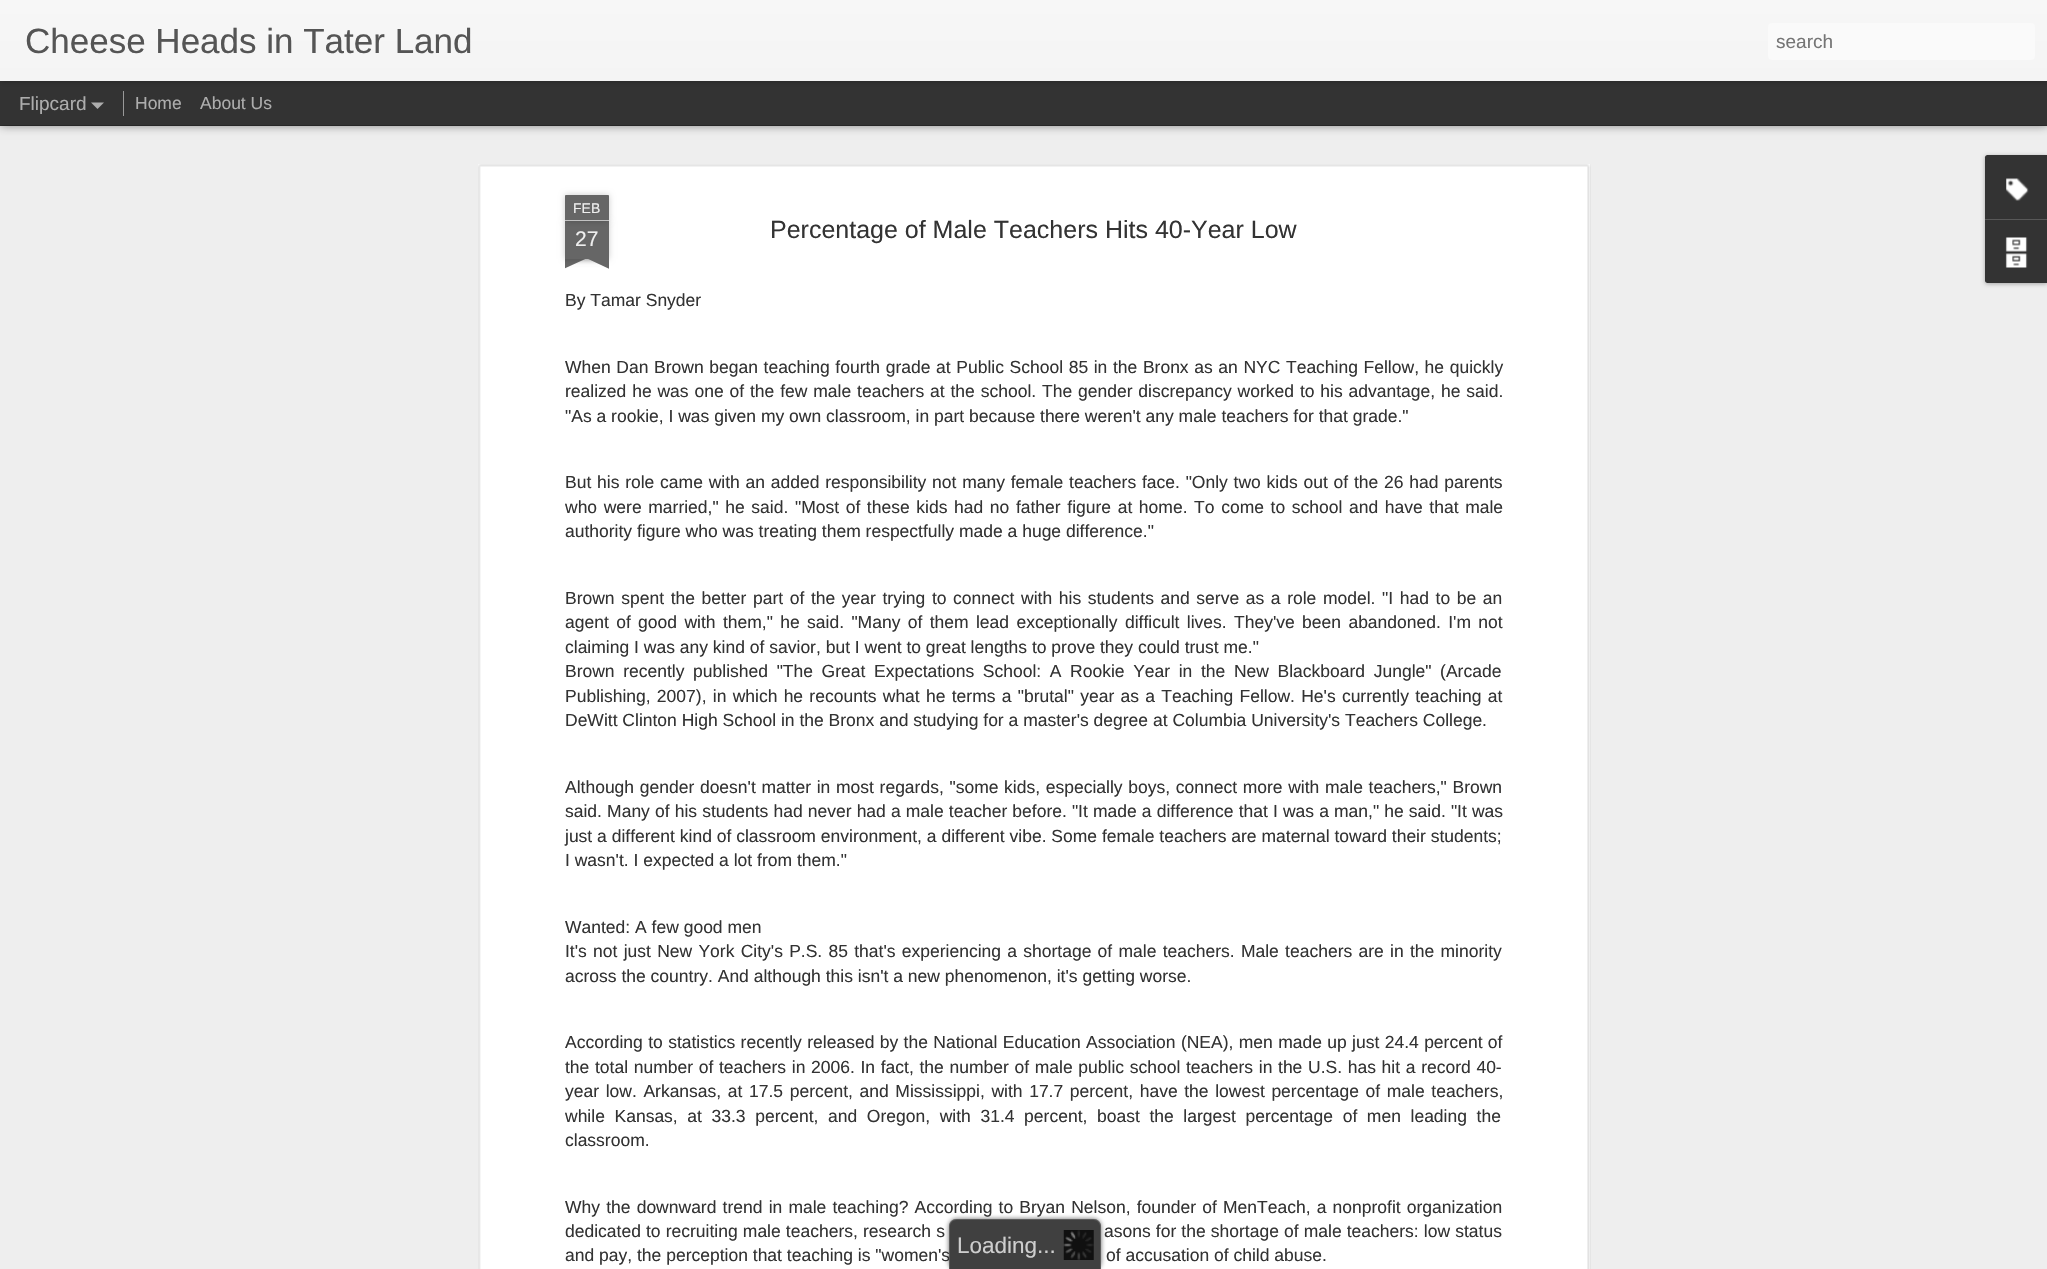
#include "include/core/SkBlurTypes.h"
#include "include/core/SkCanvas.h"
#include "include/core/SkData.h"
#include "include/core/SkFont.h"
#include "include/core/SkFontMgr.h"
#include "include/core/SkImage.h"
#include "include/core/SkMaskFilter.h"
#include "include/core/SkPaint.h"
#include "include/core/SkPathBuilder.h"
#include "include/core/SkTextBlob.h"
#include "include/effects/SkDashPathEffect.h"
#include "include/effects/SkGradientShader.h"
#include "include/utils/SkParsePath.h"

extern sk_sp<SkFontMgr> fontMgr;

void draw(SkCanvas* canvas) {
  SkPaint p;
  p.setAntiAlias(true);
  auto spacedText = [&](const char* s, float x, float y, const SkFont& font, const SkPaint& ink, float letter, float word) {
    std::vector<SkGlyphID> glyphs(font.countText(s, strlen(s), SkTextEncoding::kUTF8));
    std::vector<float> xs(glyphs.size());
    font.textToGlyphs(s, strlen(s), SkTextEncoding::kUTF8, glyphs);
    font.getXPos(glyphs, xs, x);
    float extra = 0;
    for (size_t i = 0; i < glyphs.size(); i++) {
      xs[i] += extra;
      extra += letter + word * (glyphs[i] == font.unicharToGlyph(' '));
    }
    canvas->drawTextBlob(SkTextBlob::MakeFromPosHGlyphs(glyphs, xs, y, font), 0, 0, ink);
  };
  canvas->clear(SkColorSetRGB(51, 51, 51));
  p.setColor(SkColorSetRGB(238, 238, 238));
  canvas->drawRect(SkRect::MakeLTRB(0, 126, 2047, 1269), p);
  p.setColor(SkColorSetARGB(128, 0, 0, 0));
  p.setMaskFilter(SkMaskFilter::MakeBlur(kNormal_SkBlurStyle, 5));
  canvas->drawRect(SkRect::MakeLTRB(0, 81, 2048, 125), p);
  p.setMaskFilter(nullptr);
  p.setColor(SkColorSetRGB(51, 51, 51));
  canvas->drawRect(SkRect::MakeLTRB(0, 81, 2047, 125), p);
  p.setColor(SkColorSetARGB(77, 0, 0, 0));
  p.setMaskFilter(SkMaskFilter::MakeBlur(kNormal_SkBlurStyle, 3));
  canvas->drawRect(SkRect::MakeLTRB(0, 0, 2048, 81), p);
  p.setMaskFilter(nullptr);
  {
    const SkColor colors[] = {SkColorSetRGB(247, 247, 247), SkColorSetRGB(244, 244, 244)};
    const float stops[] = {0, 1};
    const SkPoint ends[] = {{0, 0}, {0, 81}};
    p.setShader(SkGradientShader::MakeLinear(ends, colors, stops, 2, SkTileMode::kClamp));
    p.setAlpha(255);
  }
  canvas->drawRect(SkRect::MakeLTRB(0, 0, 2047, 81), p);
  p.setShader(nullptr);
  p.setColor(SkColorSetRGB(250, 250, 250));
  canvas->drawRoundRect(SkRect::MakeLTRB(1768, 23, 2035, 60), 4, 4, p);
  p.setColor(SkColorSetRGB(173, 173, 173));
  canvas->drawPath(SkPathBuilder().moveTo(91, 102.5f).lineTo(104, 102.5f).lineTo(97.5f, 109).close().detach(), p);
  p.setColor(SkColorSetRGB(153, 153, 153));
  canvas->drawRect(SkRect::MakeLTRB(123, 91, 124, 116), p);
  p.setColor(SK_ColorWHITE);
  canvas->drawRect(SkRect::MakeLTRB(478, 164, 1590, 1269), p);
  canvas->drawImageRect(SkImages::DeferredFromEncodedData(SkData::MakeFromFileName("images/1.png")), SkRect::MakeLTRB(478, 164, 1591, 1269), SkSamplingOptions());
  p.setColor(SkColorSetARGB(51, 0, 0, 0));
  p.setMaskFilter(SkMaskFilter::MakeBlur(kNormal_SkBlurStyle, 3));
  canvas->drawRect(SkRect::MakeLTRB(565, 221, 609, 259), p);
  p.setMaskFilter(nullptr);
  p.setColor(SkColorSetRGB(102, 102, 102));
  canvas->drawRect(SkRect::MakeLTRB(565, 221, 609, 259), p);
  p.setColor(SkColorSetARGB(51, 0, 0, 0));
  p.setMaskFilter(SkMaskFilter::MakeBlur(kNormal_SkBlurStyle, 3));
  canvas->drawRoundRect(SkRect::MakeLTRB(565, 195, 609, 221), 1, 1, p);
  p.setMaskFilter(nullptr);
  p.setColor(SkColorSetRGB(102, 102, 102));
  canvas->drawPath(SkPathBuilder().moveTo(566, 195).lineTo(608, 195).cubicTo(608.5f, 195, 609, 195.5f, 609, 196).lineTo(609, 221).lineTo(565, 221).lineTo(565, 196).cubicTo(565, 195.5f, 565.5f, 195, 566, 195).close().detach(), p);
  p.setColor(SkColorSetRGB(194, 194, 194));
  canvas->drawRect(SkRect::MakeLTRB(565, 220, 609, 221), p);
  canvas->save();
  canvas->clipRect(SkRect::MakeLTRB(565, 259, 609, 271));
  p.setColor(SkColorSetARGB(51, 0, 0, 0));
  p.setMaskFilter(SkMaskFilter::MakeBlur(kNormal_SkBlurStyle, 3));
  canvas->drawRect(SkRect::MakeLTRB(554, 246, 616, 259), p);
  p.setMaskFilter(nullptr);
  canvas->restore();
  canvas->save();
  canvas->clipRect(SkRect::MakeLTRB(565, 259, 609, 271));
  p.setColor(SkColorSetRGB(102, 102, 102));
  canvas->drawPath(SkPathBuilder().moveTo(554, 260).lineTo(611, 234).lineTo(616, 245).lineTo(559, 271).close().detach(), p);
  canvas->restore();
  canvas->save();
  canvas->clipRect(SkRect::MakeLTRB(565, 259, 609, 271));
  p.setColor(SkColorSetARGB(51, 0, 0, 0));
  p.setMaskFilter(SkMaskFilter::MakeBlur(kNormal_SkBlurStyle, 3));
  canvas->drawRect(SkRect::MakeLTRB(558, 246, 620, 259), p);
  p.setMaskFilter(nullptr);
  canvas->restore();
  canvas->save();
  canvas->clipRect(SkRect::MakeLTRB(565, 259, 609, 271));
  p.setColor(SkColorSetRGB(102, 102, 102));
  canvas->drawPath(SkPathBuilder().moveTo(563, 234).lineTo(620, 260).lineTo(614, 271).lineTo(558, 245).close().detach(), p);
  canvas->restore();
  p.setColor(SkColorSetARGB(77, 0, 0, 0));
  p.setMaskFilter(SkMaskFilter::MakeBlur(kNormal_SkBlurStyle, 2));
  canvas->drawRoundRect(SkRect::MakeLTRB(1985, 156, 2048, 284), 2.5f, 2.5f, p);
  p.setMaskFilter(nullptr);
  p.setColor(SkColorSetRGB(51, 51, 51));
  canvas->drawPath(SkPathBuilder().moveTo(1987.5f, 155).lineTo(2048, 155).lineTo(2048, 219).lineTo(1985, 219).lineTo(1985, 157.5f).cubicTo(1985, 156, 1986, 155, 1987.5f, 155).close().detach(), p);
  canvas->drawImageRect(SkImages::DeferredFromEncodedData(SkData::MakeFromFileName("images/2.png")), SkRect::MakeLTRB(2006, 178, 2029, 201), SkSamplingOptions());
  canvas->drawPath(SkPathBuilder().moveTo(1985, 219).lineTo(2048, 219).lineTo(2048, 283).lineTo(1987.5f, 283).cubicTo(1986, 283, 1985, 282, 1985, 280.5f).close().detach(), p);
  p.setColor(SkColorSetRGB(88, 88, 88));
  canvas->drawRect(SkRect::MakeLTRB(1985, 219, 2047, 220), p);
  canvas->drawImageRect(SkImages::DeferredFromEncodedData(SkData::MakeFromFileName("images/3.png")), SkRect::MakeLTRB(2005, 237, 2028, 268), SkSamplingOptions());
  canvas->save();
  canvas->clipPath(SkPathBuilder(SkPathFillType::kEvenOdd).moveTo(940, 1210).lineTo(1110, 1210).lineTo(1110, 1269).lineTo(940, 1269).close().moveTo(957, 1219).lineTo(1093, 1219).cubicTo(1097.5f, 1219, 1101, 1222.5f, 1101, 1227).lineTo(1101, 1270).lineTo(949, 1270).lineTo(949, 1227).cubicTo(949, 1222.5f, 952.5f, 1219, 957, 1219).close().detach(), true);
  p.setColor(SkColorSetARGB(191, 51, 51, 51));
  p.setMaskFilter(SkMaskFilter::MakeBlur(kNormal_SkBlurStyle, 2.5f));
  canvas->drawRoundRect(SkRect::MakeLTRB(949, 1219, 1101, 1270), 8, 8, p);
  p.setMaskFilter(nullptr);
  canvas->restore();
  SkFont font1(fontMgr->matchFamilyStyle("Liberation Sans", SkFontStyle::Normal()), 35);
  font1.setSubpixel(true);
  p.setColor(SkColorSetRGB(85, 85, 85));
  canvas->drawString("Cheese Heads in Tater Land", 25, 53, font1, p);
  SkFont font2(fontMgr->matchFamilyStyle("Liberation Sans", SkFontStyle::Normal()), 19);
  font2.setSubpixel(true);
  p.setColor(SkColorSetRGB(117, 117, 117));
  canvas->drawString("search", 1776, 48, font2, p);
  p.setColor(SkColorSetRGB(173, 173, 173));
  canvas->drawString("Flipcard", 19, 110, font2, p);
  SkFont font3(fontMgr->matchFamilyStyle("Liberation Sans", SkFontStyle::Normal()), 17.5f);
  font3.setSubpixel(true);
  canvas->drawString("Home", 135, 109, font3, p);
  canvas->drawString("About Us", 200, 109, font3, p);
  SkFont font4(fontMgr->matchFamilyStyle("Liberation Sans", SkFontStyle::Normal()), 14);
  font4.setSubpixel(true);
  p.setColor(SkColorSetRGB(238, 238, 238));
  canvas->drawString("FEB", 573, 213, font4, p);
  SkFont font5(fontMgr->matchFamilyStyle("Liberation Sans", SkFontStyle::Normal()), 21);
  font5.setSubpixel(true);
  canvas->drawString("27", 575, 246, font5, p);
  SkFont font6(fontMgr->matchFamilyStyle("Liberation Sans", SkFontStyle::Normal()), 25);
  font6.setSubpixel(true);
  p.setColor(SkColorSetRGB(51, 51, 51));
  canvas->drawString("Percentage of Male Teachers Hits 40-Year Low", 770, 238, font6, p);
  canvas->drawString("By Tamar Snyder", 565, 306, font3, p);
  spacedText("When Dan Brown began teaching fourth grade at Public School 85 in the Bronx as an NYC Teaching Fellow, he quickly", 565, 373, font3, p, 0, 0.75f);
  spacedText("realized he was one of the few male teachers at the school. The gender discrepancy worked to his advantage, he said.", 565, 397, font3, p, 0, 1);
  canvas->drawString("\"As a rookie, I was given my own classroom, in part because there weren't any male teachers for that grade.\"", 565, 422, font3, p);
  spacedText("But his role came with an added responsibility not many female teachers face. \"Only two kids out of the 26 had parents", 565, 488, font3, p, 0, 0.9f);
  spacedText("who were married,\" he said. \"Most of these kids had no father figure at home. To come to school and have that male", 565, 513, font3, p, 0, 1.75f);
  canvas->drawString("authority figure who was treating them respectfully made a huge difference.\"", 565, 537, font3, p);
  spacedText("Brown spent the better part of the year trying to connect with his students and serve as a role model. \"I had to be an", 565, 604, font3, p, 0, 1.75f);
  spacedText("agent of good with them,\" he said. \"Many of them lead exceptionally difficult lives. They've been abandoned. I'm not", 565, 628, font3, p, 0, 2.5f);
  canvas->drawString("claiming I was any kind of savior, but I went to great lengths to prove they could trust me.\"", 565, 653, font3, p);
  spacedText("Brown recently published \"The Great Expectations School: A Rookie Year in the New Blackboard Jungle\" (Arcade", 565, 677, font3, p, 0, 3.75f);
  spacedText("Publishing, 2007), in which he recounts what he terms a \"brutal\" year as a Teaching Fellow. He's currently teaching at", 565, 702, font3, p, 0, 1.4f);
  canvas->drawString("DeWitt Clinton High School in the Bronx and studying for a master's degree at Columbia University's Teachers College.", 565, 726, font3, p);
  spacedText("Although gender doesn't matter in most regards, \"some kids, especially boys, connect more with male teachers,\" Brown", 565, 793, font3, p, 0, 0.8f);
  spacedText("said. Many of his students had never had a male teacher before. \"It made a difference that I was a man,\" he said. \"It was", 565, 817, font3, p, 0, 0.25f);
  canvas->drawString("just a different kind of classroom environment, a different vibe. Some female teachers are maternal toward their students;", 565, 842, font3, p);
  canvas->drawString("I wasn't. I expected a lot from them.\"", 565, 866, font3, p);
  canvas->drawString("Wanted: A few good men", 565, 933, font3, p);
  spacedText("It's not just New York City's P.S. 85 that's experiencing a shortage of male teachers. Male teachers are in the minority", 565, 957, font3, p, 0, 1.4f);
  canvas->drawString("across the country. And although this isn't a new phenomenon, it's getting worse.", 565, 982, font3, p);
  spacedText("According to statistics recently released by the National Education Association (NEA), men made up just 24.4 percent of", 565, 1048, font3, p, 0, 0.5f);
  spacedText("the total number of teachers in 2006. In fact, the number of male public school teachers in the U.S. has hit a record 40-", 565, 1073, font3, p, 0, 0.8f);
  spacedText("year low. Arkansas, at 17.5 percent, and Mississippi, with 17.7 percent, have the lowest percentage of male teachers,", 565, 1097, font3, p, 0, 1.75f);
  spacedText("while Kansas, at 33.3 percent, and Oregon, with 31.4 percent, boast the largest percentage of men leading the", 565, 1122, font3, p, 0, 4.75f);
  canvas->drawString("classroom.", 565, 1146, font3, p);
  spacedText("Why the downward trend in male teaching? According to Bryan Nelson, founder of MenTeach, a nonprofit organization", 565, 1213, font3, p, 0, 1.3f);
  spacedText("dedicated to recruiting male teachers, research s", 565, 1237, font3, p, 0, 0.25f);
  spacedText("asons for the shortage of male teachers: low status", 1104, 1237, font3, p, 0, 0.25f);
  canvas->drawString("and pay, the perception that teaching is \"women's", 565, 1261, font3, p);
  canvas->drawString("of accusation of child abuse.", 1106, 1261, font3, p);
  p.setColor(SkColorSetARGB(191, 0, 0, 0));
  canvas->drawPath(SkPathBuilder().moveTo(957, 1219).lineTo(1093, 1219).cubicTo(1097.5f, 1219, 1101, 1222.5f, 1101, 1227).lineTo(1101, 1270).lineTo(949, 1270).lineTo(949, 1227).cubicTo(949, 1222.5f, 952.5f, 1219, 957, 1219).close().detach(), p);
  p.setColor(SkColorSetARGB(191, 102, 102, 102));
  canvas->drawPath(SkPathBuilder(SkPathFillType::kEvenOdd).moveTo(956, 1219).lineTo(1094, 1219).cubicTo(1098, 1219, 1101, 1222, 1101, 1226).lineTo(1101, 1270).lineTo(949, 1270).lineTo(949, 1226).cubicTo(949, 1222, 952, 1219, 956, 1219).close().moveTo(956, 1220).lineTo(1094, 1220).cubicTo(1097, 1220, 1100, 1223, 1100, 1226).lineTo(1100, 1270).lineTo(950, 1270).lineTo(950, 1226).cubicTo(950, 1223, 953, 1220, 956, 1220).close().detach(), p);
  canvas->drawImageRect(SkImages::DeferredFromEncodedData(SkData::MakeFromFileName("images/4.png")), SkRect::MakeLTRB(1063, 1230, 1094, 1260), SkSamplingOptions());
  SkFont font7(fontMgr->matchFamilyStyle("Liberation Sans", SkFontStyle::Normal()), 22.5f);
  font7.setSubpixel(true);
  p.setColor(SkColorSetRGB(206, 206, 206));
  canvas->drawString("Loading", 957, 1253, font7, p);
  canvas->drawString("...", 1037, 1253, font7, p);
}
